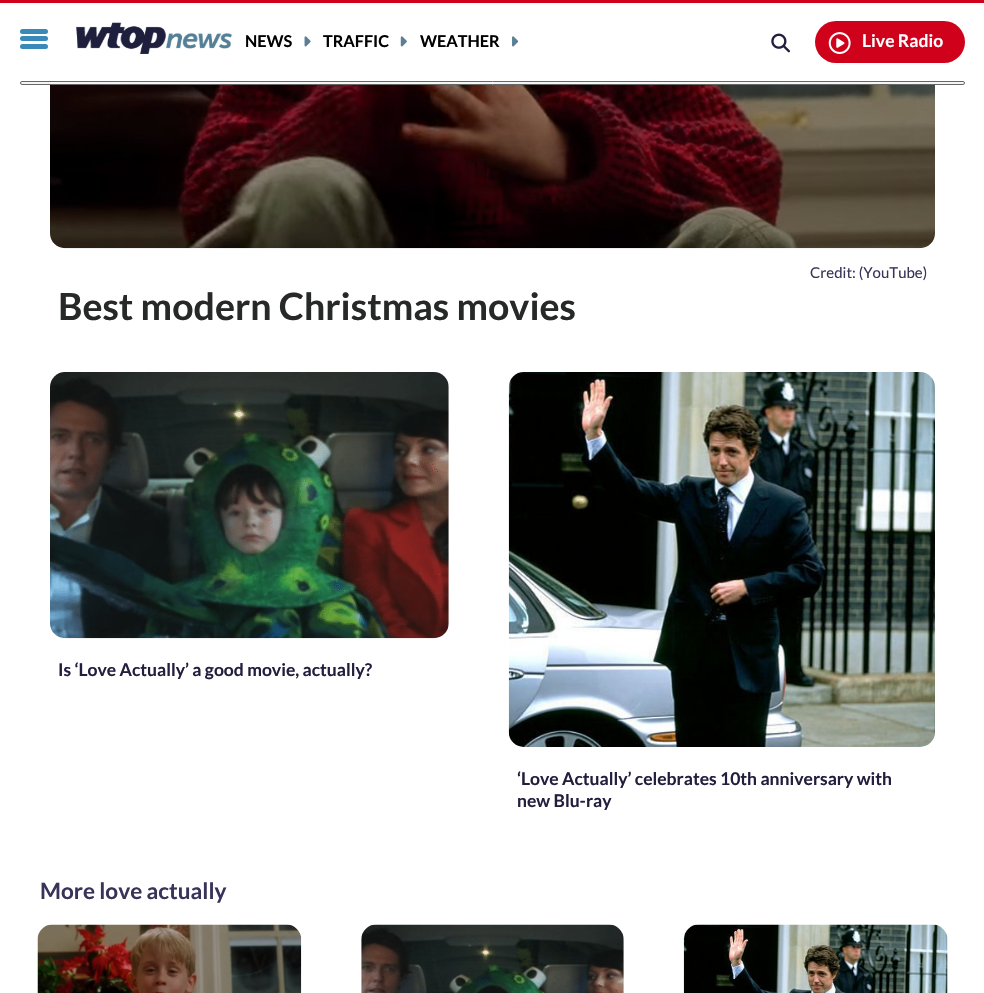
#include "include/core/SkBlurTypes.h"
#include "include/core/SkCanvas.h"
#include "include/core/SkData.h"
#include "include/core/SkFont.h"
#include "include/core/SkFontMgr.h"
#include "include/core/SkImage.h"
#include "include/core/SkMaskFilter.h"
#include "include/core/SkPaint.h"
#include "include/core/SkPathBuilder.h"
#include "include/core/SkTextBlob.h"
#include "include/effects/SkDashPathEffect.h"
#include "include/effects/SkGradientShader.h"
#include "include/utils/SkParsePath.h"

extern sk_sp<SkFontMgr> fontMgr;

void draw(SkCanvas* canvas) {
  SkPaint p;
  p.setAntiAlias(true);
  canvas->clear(SK_ColorWHITE);
  p.setColor(SkColorSetRGB(208, 2, 27));
  canvas->drawRect(SkRect::MakeLTRB(0, 0, 984, 3), p);
  p.setColor(SkColorSetRGB(57, 138, 185));
  canvas->drawRoundRect(SkRect::MakeLTRB(20, 29, 48, 34), 2.5f, 2.5f, p);
  canvas->drawRoundRect(SkRect::MakeLTRB(20, 36, 48, 41), 2.5f, 2.5f, p);
  canvas->drawRoundRect(SkRect::MakeLTRB(20, 44, 48, 49), 2.5f, 2.5f, p);
  canvas->drawImageRect(SkImages::DeferredFromEncodedData(SkData::MakeFromFileName("images/1.png")), SkRect::MakeLTRB(76, 22, 232, 54), SkSamplingOptions());
  canvas->drawImageRect(SkImages::DeferredFromEncodedData(SkData::MakeFromFileName("images/2.png")), SkRect::MakeLTRB(304, 36, 311, 47), SkSamplingOptions());
  canvas->drawImageRect(SkImages::DeferredFromEncodedData(SkData::MakeFromFileName("images/3.png")), SkRect::MakeLTRB(400, 36, 407, 47), SkSamplingOptions());
  canvas->drawImageRect(SkImages::DeferredFromEncodedData(SkData::MakeFromFileName("images/4.png")), SkRect::MakeLTRB(512, 36, 519, 47), SkSamplingOptions());
  canvas->drawImageRect(SkImages::DeferredFromEncodedData(SkData::MakeFromFileName("images/5.png")), SkRect::MakeLTRB(771, 33, 790, 53), SkSamplingOptions());
  p.setColor(SkColorSetRGB(208, 2, 27));
  canvas->drawRoundRect(SkRect::MakeLTRB(815, 21, 965, 63), 21, 21, p);
  canvas->drawImageRect(SkImages::DeferredFromEncodedData(SkData::MakeFromFileName("images/6.png")), SkRect::MakeLTRB(828, 32, 851, 54), SkSamplingOptions());
  p.setColor(SkColorSetRGB(244, 244, 244));
  canvas->drawRoundRect(SkRect::MakeLTRB(20.5f, 81.5f, 964.5f, 84.5f), 1.5f, 1.5f, p);
  p.setStyle(SkPaint::kStroke_Style);
  p.setStrokeWidth(1);
  p.setColor(SkColorSetRGB(102, 102, 102));
  canvas->drawRoundRect(SkRect::MakeLTRB(20.5f, 81.5f, 964.5f, 84.5f), 1.5f, 1.5f, p);
  canvas->drawImageRect(SkImages::DeferredFromEncodedData(SkData::MakeFromFileName("images/7.png")), SkRect::MakeLTRB(50, 85, 935, 249), SkSamplingOptions());
  canvas->drawImageRect(SkImages::DeferredFromEncodedData(SkData::MakeFromFileName("images/8.png")), SkRect::MakeLTRB(50, 372, 449, 639), SkSamplingOptions());
  canvas->drawImageRect(SkImages::DeferredFromEncodedData(SkData::MakeFromFileName("images/9.png")), SkRect::MakeLTRB(508, 372, 935, 747), SkSamplingOptions());
  canvas->drawImageRect(SkImages::DeferredFromEncodedData(SkData::MakeFromFileName("images/10.png")), SkRect::MakeLTRB(37, 924, 302, 993), SkSamplingOptions());
  canvas->drawImageRect(SkImages::DeferredFromEncodedData(SkData::MakeFromFileName("images/11.png")), SkRect::MakeLTRB(361, 924, 624, 993), SkSamplingOptions());
  canvas->drawImageRect(SkImages::DeferredFromEncodedData(SkData::MakeFromFileName("images/12.png")), SkRect::MakeLTRB(683, 924, 948, 993), SkSamplingOptions());
  SkFont font1(fontMgr->matchFamilyStyle("Lato", SkFontStyle::Bold()), 16.25f);
  font1.setSubpixel(true);
  p.setStyle(SkPaint::kFill_Style);
  p.setColor(SK_ColorBLACK);
  canvas->drawString("NEWS", 245, 47, font1, p);
  canvas->drawString("TRAFFIC", 323, 47, font1, p);
  canvas->drawString("WEATHER", 420, 47, font1, p);
  SkFont font2(fontMgr->matchFamilyStyle("Lato", SkFontStyle::Bold()), 17.5f);
  font2.setSubpixel(true);
  p.setColor(SK_ColorWHITE);
  canvas->drawString("Live Radio", 862, 47, font2, p);
  SkFont font3(fontMgr->matchFamilyStyle("Lato", SkFontStyle::Normal()), 15);
  font3.setSubpixel(true);
  p.setColor(SkColorSetRGB(58, 51, 89));
  canvas->drawString("Credit: (YouTube)", 810, 278, font3, p);
  SkFont font4(fontMgr->matchFamilyStyle("Lato", SkFontStyle::Bold()), 37.5f);
  font4.setSubpixel(true);
  p.setColor(SkColorSetRGB(39, 40, 40));
  canvas->drawString("Best modern Christmas movies", 58, 320, font4, p);
  p.setColor(SkColorSetRGB(35, 30, 62));
  canvas->drawString("Is ‘Love Actually’ a good movie, actually?", 58, 676, font2, p);
  canvas->drawString("‘Love Actually’ celebrates 10th anniversary with", 517, 785, font2, p);
  canvas->drawString("new Blu-ray", 517, 807, font2, p);
  SkFont font5(fontMgr->matchFamilyStyle("Lato", SkFontStyle::Bold()), 22.5f);
  font5.setSubpixel(true);
  p.setColor(SkColorSetRGB(58, 51, 89));
  canvas->drawString("More love actually", 40, 899, font5, p);
}
